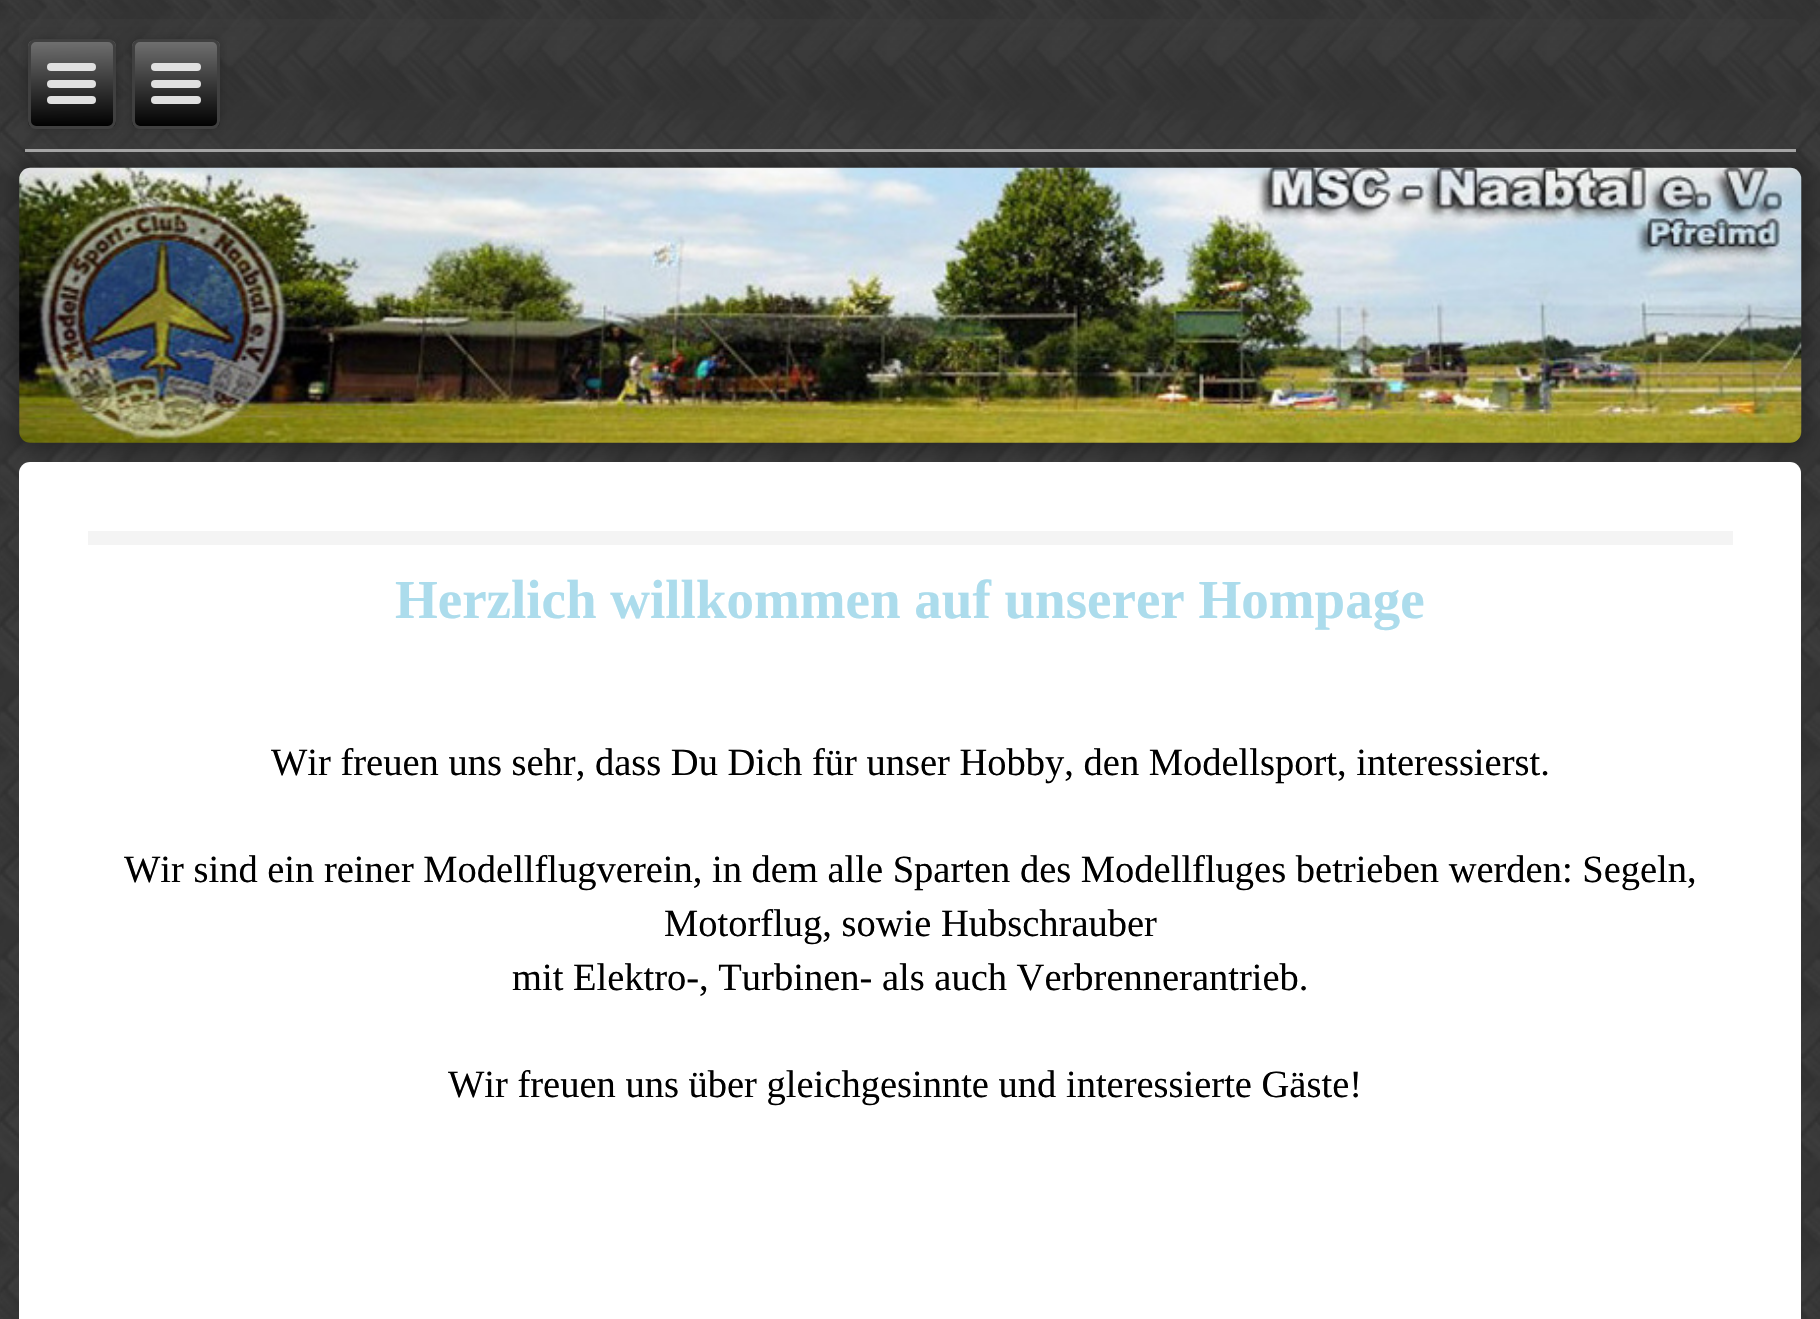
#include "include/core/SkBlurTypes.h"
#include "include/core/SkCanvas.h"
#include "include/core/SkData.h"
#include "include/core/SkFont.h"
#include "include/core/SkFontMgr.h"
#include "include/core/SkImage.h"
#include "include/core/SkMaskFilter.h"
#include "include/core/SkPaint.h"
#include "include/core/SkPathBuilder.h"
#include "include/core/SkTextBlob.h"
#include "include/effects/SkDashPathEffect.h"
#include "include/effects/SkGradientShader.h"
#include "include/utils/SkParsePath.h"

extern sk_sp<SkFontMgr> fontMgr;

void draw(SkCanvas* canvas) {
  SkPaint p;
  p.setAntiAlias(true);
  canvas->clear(SkColorSetRGB(54, 54, 54));
  canvas->drawImageRect(SkImages::DeferredFromEncodedData(SkData::MakeFromFileName("images/1.png")), SkRect::MakeLTRB(0, 0, 1820, 1319), SkSamplingOptions());
  p.setColor(SkColorSetARGB(51, 0, 0, 0));
  p.setMaskFilter(SkMaskFilter::MakeBlur(kNormal_SkBlurStyle, 7));
  canvas->drawRoundRect(SkRect::MakeLTRB(11, 160, 1810, 451), 19, 19, p);
  p.setMaskFilter(nullptr);
  {
    const SkColor colors[] = {SkColorSetARGB(77, 64, 64, 64), SkColorSetARGB(77, 48, 48, 48), SkColorSetARGB(77, 46, 46, 46), SkColorSetARGB(77, 48, 48, 48), SkColorSetARGB(77, 64, 64, 64)};
    const float stops[] = {0, 0.4f, 0.5f, 0.6f, 1};
    const SkPoint ends[] = {{910, 19}, {910, 151}};
    p.setShader(SkGradientShader::MakeLinear(ends, colors, stops, 5, SkTileMode::kClamp));
    p.setAlpha(255);
  }
  canvas->drawRoundRect(SkRect::MakeLTRB(19, 19, 1801, 151), 11, 11, p);
  p.setShader(nullptr);
  p.setColor(SkColorSetARGB(204, 191, 191, 191));
  canvas->drawRect(SkRect::MakeLTRB(25, 149, 1796, 152), p);
  p.setColor(SkColorSetARGB(51, 0, 0, 0));
  p.setMaskFilter(SkMaskFilter::MakeBlur(kNormal_SkBlurStyle, 4));
  canvas->drawRoundRect(SkRect::MakeLTRB(28, 39, 116, 129), 8, 8, p);
  p.setMaskFilter(nullptr);
  canvas->save();
  canvas->clipPath(SkPathBuilder().moveTo(36, 39).lineTo(108, 39).cubicTo(112.5f, 39, 116, 42.5f, 116, 47).lineTo(116, 121).cubicTo(116, 125.5f, 112.5f, 129, 108, 129).lineTo(36, 129).cubicTo(31.5f, 129, 28, 125.5f, 28, 121).lineTo(28, 47).cubicTo(28, 42.5f, 31.5f, 39, 36, 39).close().detach(), true);
  {
    const SkColor colors[] = {SkColorSetRGB(112, 112, 112), SK_ColorBLACK};
    const float stops[] = {0, 1};
    const SkPoint ends[] = {{71, 41}, {72, 127}};
    p.setShader(SkGradientShader::MakeLinear(ends, colors, stops, 2, SkTileMode::kClamp));
    p.setAlpha(255);
  }
  canvas->drawRect(SkRect::MakeLTRB(28, 41, 116, 127), p);
  canvas->restore();
  p.setStyle(SkPaint::kStroke_Style);
  p.setStrokeWidth(3);
  p.setShader(nullptr);
  p.setColor(SkColorSetRGB(64, 64, 64));
  canvas->drawRoundRect(SkRect::MakeLTRB(29.5f, 40.5f, 114.5f, 127.5f), 6.5f, 6.5f, p);
  p.setStyle(SkPaint::kFill_Style);
  p.setColor(SkColorSetRGB(224, 224, 224));
  canvas->drawRoundRect(SkRect::MakeLTRB(47, 63, 96, 71), 4, 4, p);
  canvas->drawRoundRect(SkRect::MakeLTRB(47, 80, 96, 88), 4, 4, p);
  canvas->drawRoundRect(SkRect::MakeLTRB(47, 96, 96, 104), 4, 4, p);
  p.setColor(SkColorSetARGB(51, 0, 0, 0));
  p.setMaskFilter(SkMaskFilter::MakeBlur(kNormal_SkBlurStyle, 4));
  canvas->drawRoundRect(SkRect::MakeLTRB(132, 39, 220, 129), 8, 8, p);
  p.setMaskFilter(nullptr);
  canvas->save();
  canvas->clipPath(SkPathBuilder().moveTo(140, 39).lineTo(212, 39).cubicTo(216.5f, 39, 220, 42.5f, 220, 47).lineTo(220, 121).cubicTo(220, 125.5f, 216.5f, 129, 212, 129).lineTo(140, 129).cubicTo(135.5f, 129, 132, 125.5f, 132, 121).lineTo(132, 47).cubicTo(132, 42.5f, 135.5f, 39, 140, 39).close().detach(), true);
  {
    const SkColor colors[] = {SkColorSetRGB(112, 112, 112), SK_ColorBLACK};
    const float stops[] = {0, 1};
    const SkPoint ends[] = {{176, 41}, {176, 127}};
    p.setShader(SkGradientShader::MakeLinear(ends, colors, stops, 2, SkTileMode::kClamp));
    p.setAlpha(255);
  }
  canvas->drawRect(SkRect::MakeLTRB(132, 41, 220, 127), p);
  canvas->restore();
  p.setStyle(SkPaint::kStroke_Style);
  p.setShader(nullptr);
  p.setColor(SkColorSetRGB(64, 64, 64));
  canvas->drawRoundRect(SkRect::MakeLTRB(133.5f, 40.5f, 218.5f, 127.5f), 6.5f, 6.5f, p);
  p.setStyle(SkPaint::kFill_Style);
  p.setColor(SkColorSetRGB(224, 224, 224));
  canvas->drawRoundRect(SkRect::MakeLTRB(151, 63, 201, 71), 4, 4, p);
  canvas->drawRoundRect(SkRect::MakeLTRB(151, 80, 201, 88), 4, 4, p);
  canvas->drawRoundRect(SkRect::MakeLTRB(151, 96, 201, 104), 4, 4, p);
  canvas->drawImageRect(SkImages::DeferredFromEncodedData(SkData::MakeFromFileName("images/2.png")), SkRect::MakeLTRB(19, 167, 1802, 443), SkSamplingOptions());
  p.setColor(SK_ColorWHITE);
  canvas->drawRoundRect(SkRect::MakeLTRB(19, 462, 1801, 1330), 11, 11, p);
  p.setColor(SkColorSetRGB(244, 244, 244));
  canvas->drawRect(SkRect::MakeLTRB(88, 531, 1733, 545), p);
  SkFont font1(fontMgr->matchFamilyStyle("Liberation Serif", SkFontStyle::Bold()), 55);
  font1.setSubpixel(true);
  p.setColor(SkColorSetRGB(172, 220, 236));
  canvas->drawString("Herzlich willkommen auf unserer Hompage", 395, 618, font1, p);
  SkFont font2(fontMgr->matchFamilyStyle("Liberation Serif", SkFontStyle::Normal()), 38.5f);
  font2.setSubpixel(true);
  p.setColor(SK_ColorBLACK);
  canvas->drawString("Wir freuen uns sehr, dass Du Dich für unser Hobby, den Modellsport, interessierst.", 271, 775, font2, p);
  canvas->drawString("Wir sind ein reiner Modellflugverein, in dem alle Sparten des Modellfluges betrieben werden: Segeln,", 124, 882, font2, p);
  canvas->drawString("Motorflug, sowie Hubschrauber", 664, 936, font2, p);
  canvas->drawString("mit Elektro-, Turbinen- als auch Verbrennerantrieb.", 512, 990, font2, p);
  canvas->drawString("Wir freuen uns über gleichgesinnte und interessierte Gäste!", 448, 1097, font2, p);
}
